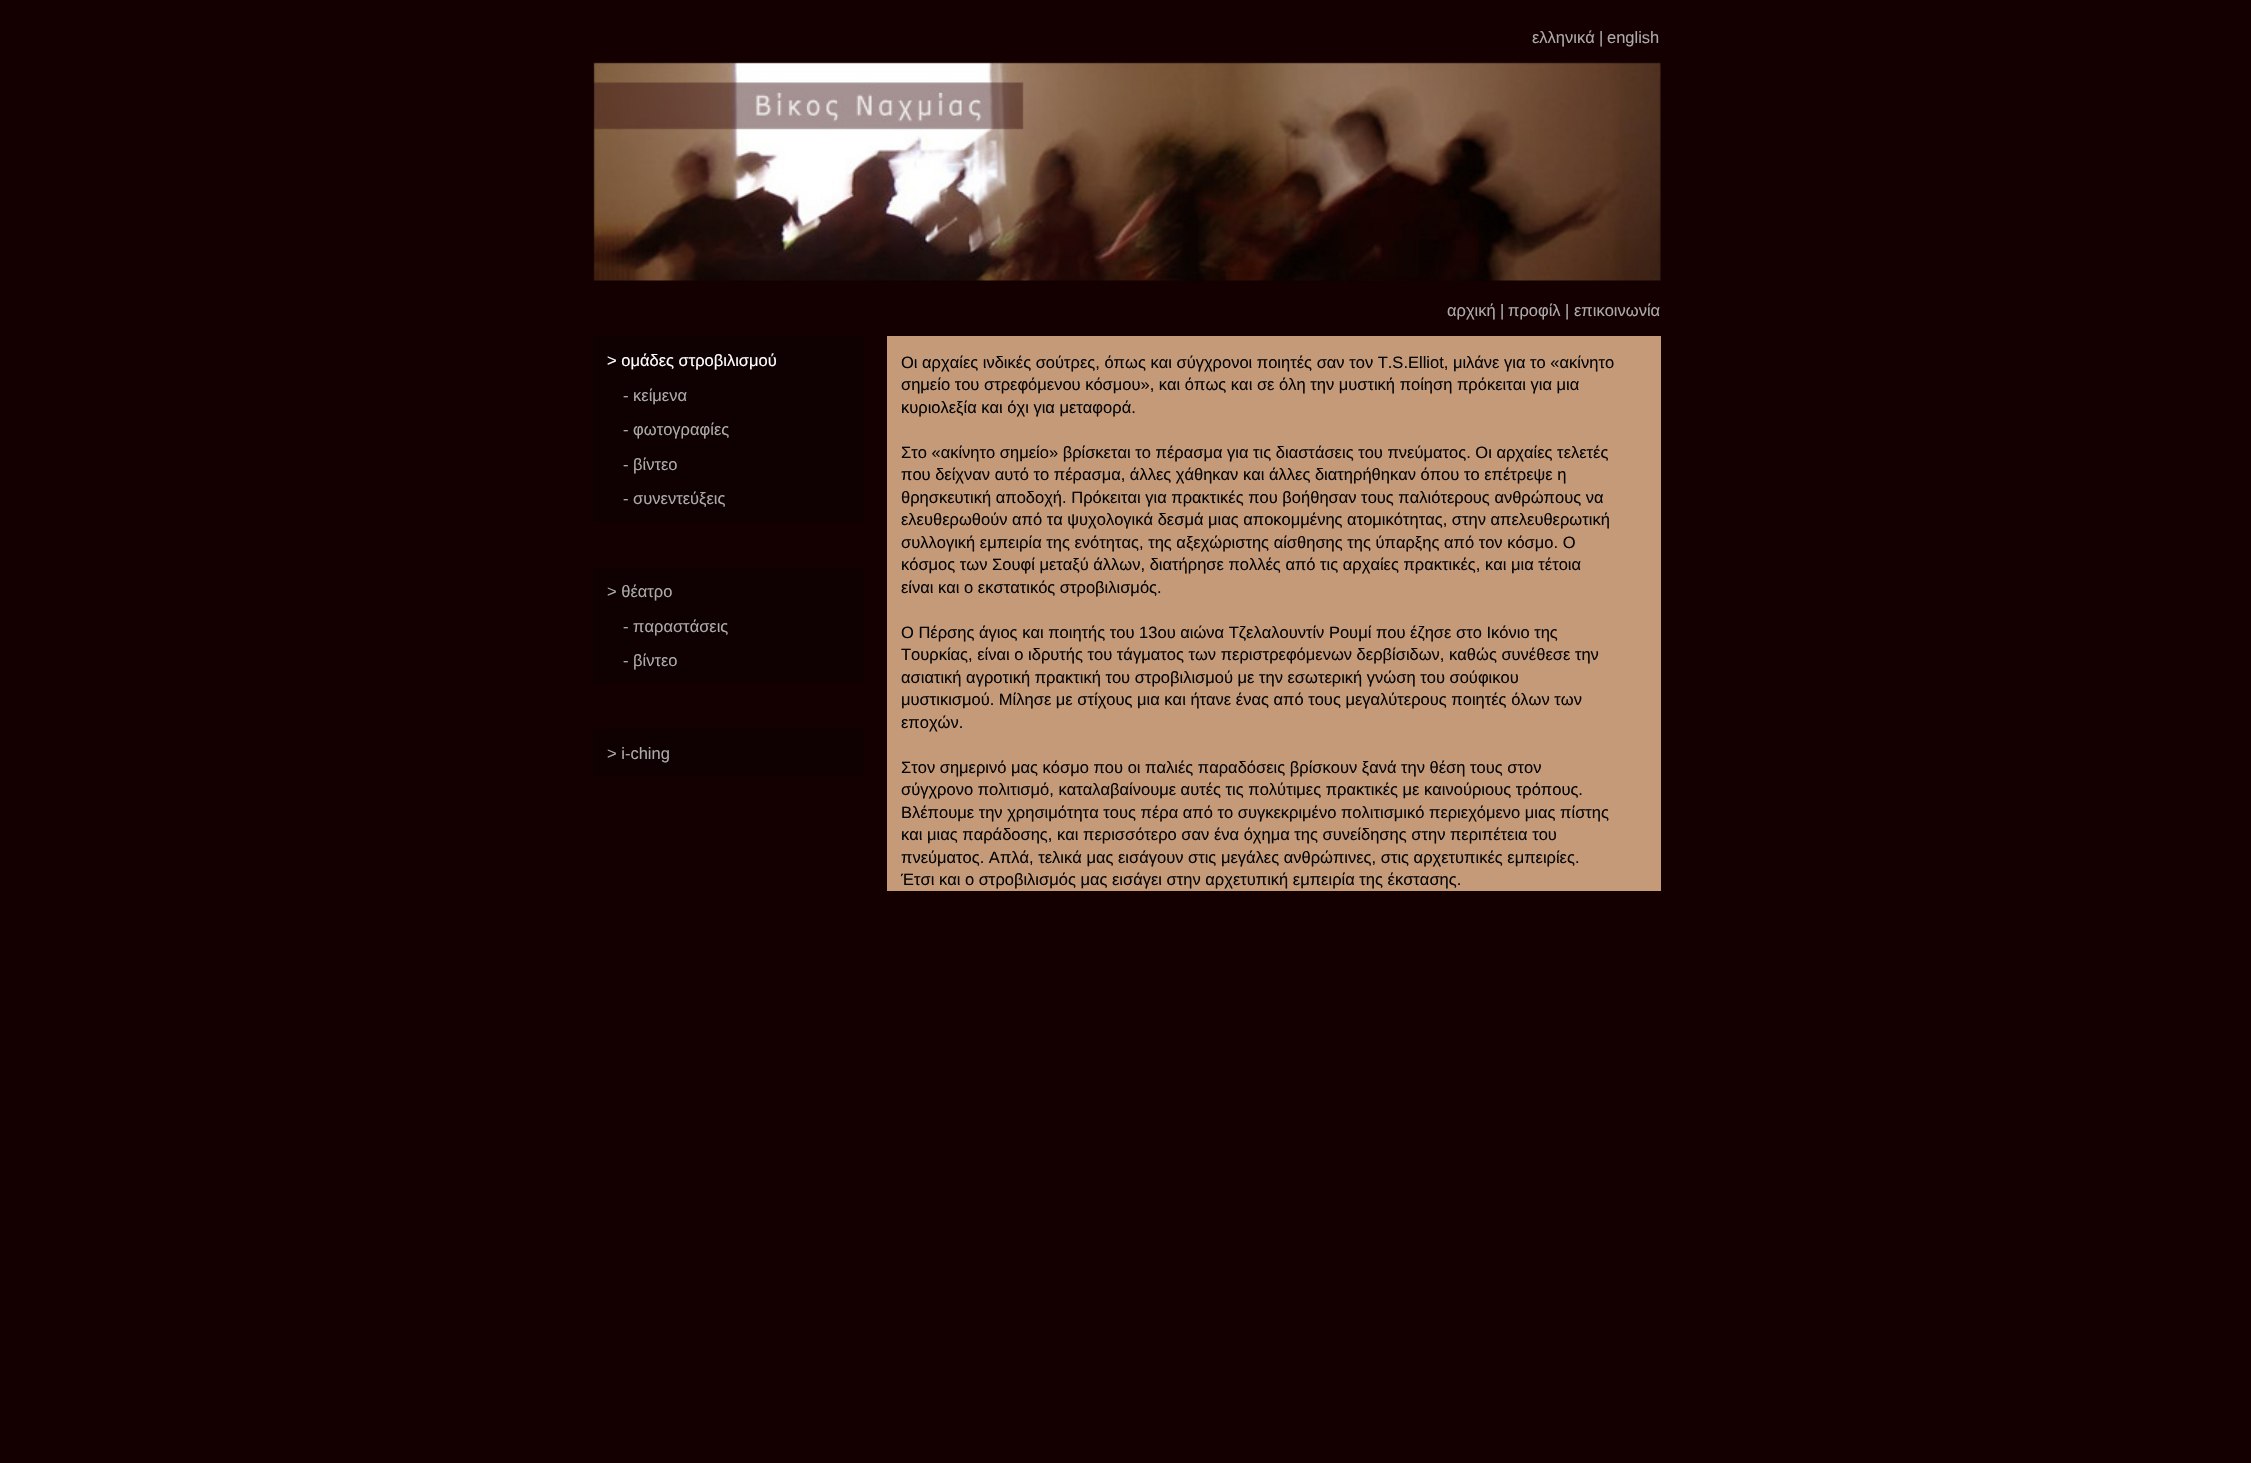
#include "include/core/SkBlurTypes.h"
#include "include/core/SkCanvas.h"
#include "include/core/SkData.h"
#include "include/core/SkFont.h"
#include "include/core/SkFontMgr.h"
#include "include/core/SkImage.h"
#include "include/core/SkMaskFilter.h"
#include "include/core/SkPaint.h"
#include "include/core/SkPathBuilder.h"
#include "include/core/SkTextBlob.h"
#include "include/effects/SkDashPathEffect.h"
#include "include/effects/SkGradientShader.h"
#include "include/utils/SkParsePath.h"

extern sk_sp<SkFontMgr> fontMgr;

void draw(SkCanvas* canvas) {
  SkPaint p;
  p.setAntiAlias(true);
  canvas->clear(SkColorSetRGB(20, 0, 1));
  canvas->drawImageRect(SkImages::DeferredFromEncodedData(SkData::MakeFromFileName("images/1.png")), SkRect::MakeLTRB(592, 61, 1661, 283), SkSamplingOptions());
  p.setColor(SkColorSetRGB(15, 0, 1));
  canvas->drawRect(SkRect::MakeLTRB(593, 336, 864, 522), p);
  canvas->drawRect(SkRect::MakeLTRB(593, 567, 864, 684), p);
  canvas->drawRect(SkRect::MakeLTRB(593, 729, 864, 777), p);
  p.setColor(SkColorSetRGB(196, 154, 121));
  canvas->drawRect(SkRect::MakeLTRB(887, 336, 1661, 891), p);
  SkFont font1(fontMgr->matchFamilyStyle("Liberation Sans", SkFontStyle::Normal()), 16.5f);
  font1.setSubpixel(true);
  p.setColor(SkColorSetRGB(171, 170, 170));
  canvas->drawString("ελληνικά", 1532, 43, font1, p);
  canvas->drawString("|", 1599, 43, font1, p);
  canvas->drawString("english", 1607, 43, font1, p);
  canvas->drawString("αρχική", 1447, 316, font1, p);
  canvas->drawString("|", 1500, 316, font1, p);
  canvas->drawString("προφίλ", 1508, 316, font1, p);
  canvas->drawString("|", 1565, 316, font1, p);
  canvas->drawString("επικοινωνία", 1574, 316, font1, p);
  p.setColor(SK_ColorWHITE);
  canvas->drawString("> ομάδες στροβιλισμού", 607, 366, font1, p);
  p.setColor(SkColorSetRGB(171, 170, 170));
  canvas->drawString("- κείμενα", 623, 401, font1, p);
  canvas->drawString("- φωτογραφίες", 623, 435, font1, p);
  canvas->drawString("- βίντεο", 623, 470, font1, p);
  canvas->drawString("- συνεντεύξεις", 623, 504, font1, p);
  canvas->drawString("> θέατρο", 607, 597, font1, p);
  canvas->drawString("- παραστάσεις", 623, 632, font1, p);
  canvas->drawString("- βίντεο", 623, 666, font1, p);
  canvas->drawString("> i-ching", 607, 759, font1, p);
  p.setColor(SkColorSetRGB(5, 5, 5));
  canvas->drawString("Οι αρχαίες ινδικές σούτρες, όπως και σύγχρονοι ποιητές σαν τον T.S.Elliot, μιλάνε για το «ακίνητο", 901, 368, font1, p);
  canvas->drawString("σημείο του στρεφόμενου κόσμου», και όπως και σε όλη την μυστική ποίηση πρόκειται για μια", 901, 390, font1, p);
  canvas->drawString("κυριολεξία και όχι για μεταφορά.", 901, 413, font1, p);
  canvas->drawString("Στο «ακίνητο σημείο» βρίσκεται το πέρασμα για τις διαστάσεις του πνεύματος. Οι αρχαίες τελετές", 901, 458, font1, p);
  canvas->drawString("που δείχναν αυτό το πέρασμα, άλλες χάθηκαν και άλλες διατηρήθηκαν όπου το επέτρεψε η", 901, 480, font1, p);
  canvas->drawString("θρησκευτική αποδοχή. Πρόκειται για πρακτικές που βοήθησαν τους παλιότερους ανθρώπους να", 901, 503, font1, p);
  canvas->drawString("ελευθερωθούν από τα ψυχολογικά δεσμά μιας αποκομμένης ατομικότητας, στην απελευθερωτική", 901, 525, font1, p);
  canvas->drawString("συλλογική εμπειρία της ενότητας, της αξεχώριστης αίσθησης της ύπαρξης από τον κόσμο. Ο", 901, 548, font1, p);
  canvas->drawString("κόσμος των Σουφί μεταξύ άλλων, διατήρησε πολλές από τις αρχαίες πρακτικές, και μια τέτοια", 901, 570, font1, p);
  canvas->drawString("είναι και ο εκστατικός στροβιλισμός.", 901, 593, font1, p);
  canvas->drawString("Ο Πέρσης άγιος και ποιητής του 13ου αιώνα Τζελαλουντίν Ρουμί που έζησε στο Ικόνιο της", 901, 638, font1, p);
  canvas->drawString("Τουρκίας, είναι ο ιδρυτής του τάγματος των περιστρεφόμενων δερβίσιδων, καθώς συνέθεσε την", 901, 660, font1, p);
  canvas->drawString("ασιατική αγροτική πρακτική του στροβιλισμού με την εσωτερική γνώση του σούφικου", 901, 683, font1, p);
  canvas->drawString("μυστικισμού. Μίλησε με στίχους μια και ήτανε ένας από τους μεγαλύτερους ποιητές όλων των", 901, 705, font1, p);
  canvas->drawString("εποχών.", 901, 728, font1, p);
  canvas->drawString("Στον σημερινό μας κόσμο που οι παλιές παραδόσεις βρίσκουν ξανά την θέση τους στον", 901, 773, font1, p);
  canvas->drawString("σύγχρονο πολιτισμό, καταλαβαίνουμε αυτές τις πολύτιμες πρακτικές με καινούριους τρόπους.", 901, 795, font1, p);
  canvas->drawString("Βλέπουμε την χρησιμότητα τους πέρα από το συγκεκριμένο πολιτισμικό περιεχόμενο μιας πίστης", 901, 818, font1, p);
  canvas->drawString("και μιας παράδοσης, και περισσότερο σαν ένα όχημα της συνείδησης στην περιπέτεια του", 901, 840, font1, p);
  canvas->drawString("πνεύματος. Απλά, τελικά μας εισάγουν στις μεγάλες ανθρώπινες, στις αρχετυπικές εμπειρίες.", 901, 863, font1, p);
  canvas->drawString("Έτσι και ο στροβιλισμός μας εισάγει στην αρχετυπική εμπειρία της έκστασης.", 901, 885, font1, p);
}
